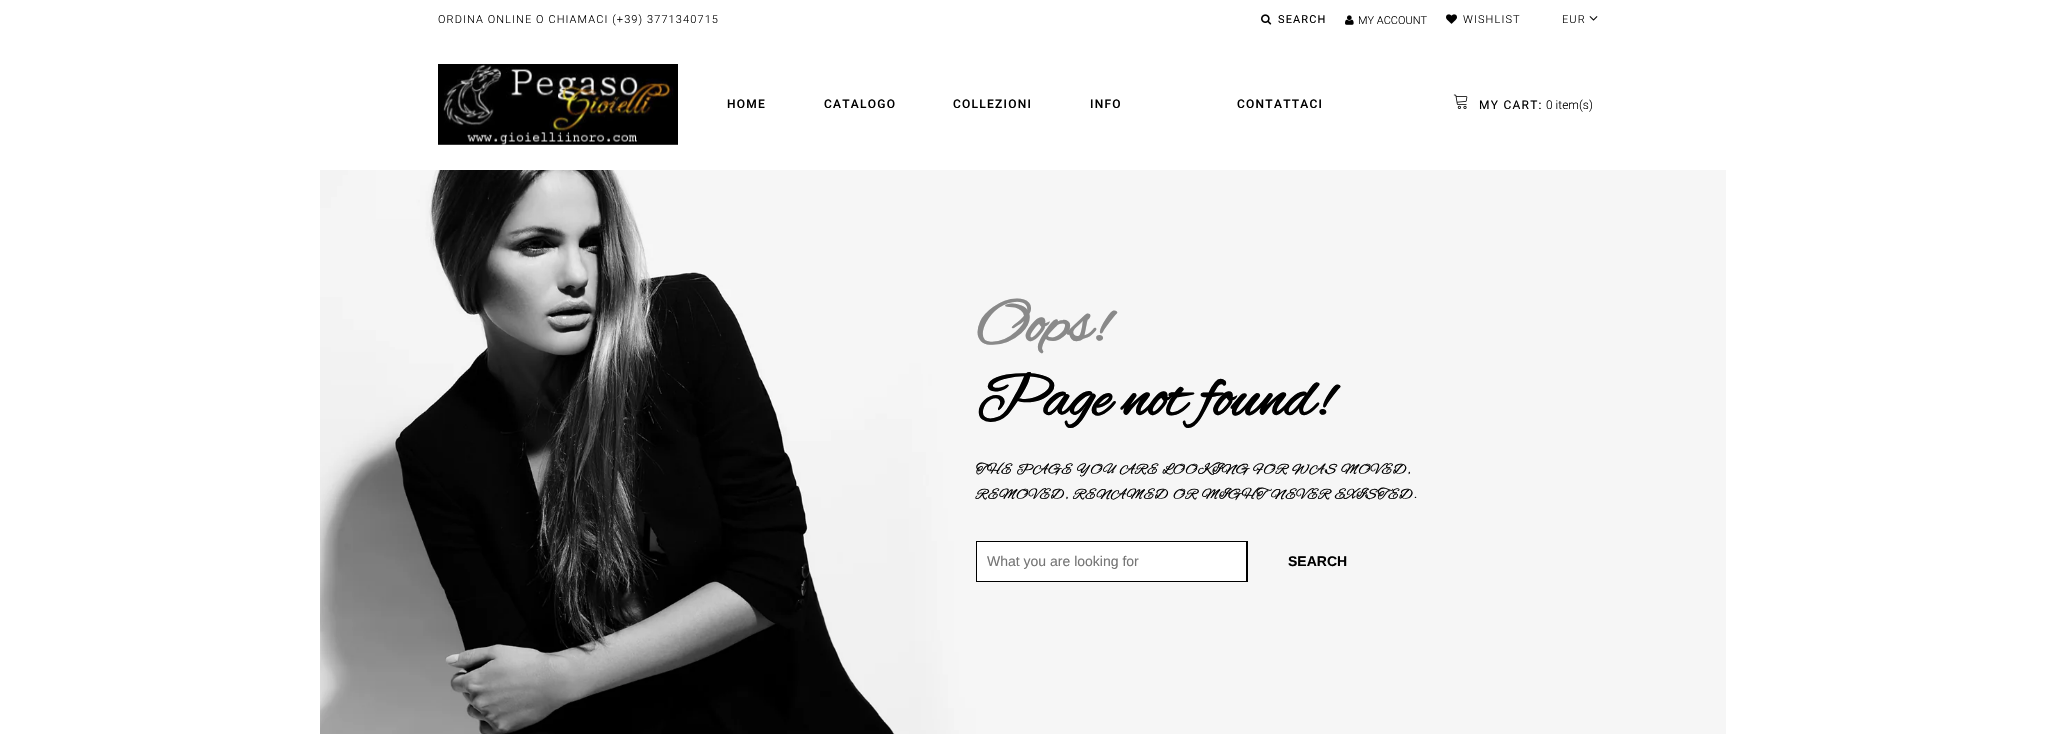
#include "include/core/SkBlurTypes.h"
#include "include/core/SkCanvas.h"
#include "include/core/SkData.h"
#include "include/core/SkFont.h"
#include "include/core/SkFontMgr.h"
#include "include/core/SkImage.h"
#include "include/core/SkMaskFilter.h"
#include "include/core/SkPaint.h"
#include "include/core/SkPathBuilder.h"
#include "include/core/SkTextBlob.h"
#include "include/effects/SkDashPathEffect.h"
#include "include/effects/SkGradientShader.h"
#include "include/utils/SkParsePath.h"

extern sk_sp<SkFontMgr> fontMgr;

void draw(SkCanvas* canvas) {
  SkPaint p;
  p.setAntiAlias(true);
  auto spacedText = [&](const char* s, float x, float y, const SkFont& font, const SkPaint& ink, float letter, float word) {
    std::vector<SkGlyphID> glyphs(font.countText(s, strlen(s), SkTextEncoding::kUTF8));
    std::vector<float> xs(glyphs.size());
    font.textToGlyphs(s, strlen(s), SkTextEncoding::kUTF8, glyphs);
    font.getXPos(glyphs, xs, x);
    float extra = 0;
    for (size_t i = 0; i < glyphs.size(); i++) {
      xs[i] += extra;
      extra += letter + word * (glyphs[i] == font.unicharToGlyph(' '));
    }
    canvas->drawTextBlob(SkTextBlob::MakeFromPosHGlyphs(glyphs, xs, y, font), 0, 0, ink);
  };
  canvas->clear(SK_ColorWHITE);
  canvas->drawImageRect(SkImages::DeferredFromEncodedData(SkData::MakeFromFileName("images/1.png")), SkRect::MakeLTRB(1261, 14, 1272, 25), SkSamplingOptions());
  canvas->drawImageRect(SkImages::DeferredFromEncodedData(SkData::MakeFromFileName("images/2.png")), SkRect::MakeLTRB(1345, 15, 1354, 25), SkSamplingOptions());
  canvas->drawImageRect(SkImages::DeferredFromEncodedData(SkData::MakeFromFileName("images/3.png")), SkRect::MakeLTRB(1446, 14, 1457, 24), SkSamplingOptions());
  canvas->drawImageRect(SkImages::DeferredFromEncodedData(SkData::MakeFromFileName("images/4.png")), SkRect::MakeLTRB(1589, 16, 1598, 21), SkSamplingOptions());
  canvas->drawImageRect(SkImages::DeferredFromEncodedData(SkData::MakeFromFileName("images/5.png")), SkRect::MakeLTRB(438, 64, 678, 145), SkSamplingOptions());
  canvas->drawImageRect(SkImages::DeferredFromEncodedData(SkData::MakeFromFileName("images/6.png")), SkRect::MakeLTRB(1453, 94, 1468, 109), SkSamplingOptions());
  canvas->drawImageRect(SkImages::DeferredFromEncodedData(SkData::MakeFromFileName("images/7.png")), SkRect::MakeLTRB(320, 170, 1726, 734), SkSamplingOptions());
  p.setColor(SK_ColorWHITE);
  canvas->drawRect(SkRect::MakeLTRB(976.5f, 541.5f, 1246.5f, 581.5f), p);
  p.setStyle(SkPaint::kStroke_Style);
  p.setStrokeWidth(1);
  p.setColor(SK_ColorBLACK);
  canvas->drawRect(SkRect::MakeLTRB(976.5f, 541.5f, 1246.5f, 581.5f), p);
  p.setStyle(SkPaint::kFill_Style);
  canvas->drawRect(SkRect::MakeLTRB(1247, 541, 1248, 582), p);
  SkFont font1(fontMgr->matchFamilyStyle("Roboto", SkFontStyle(300, SkFontStyle::kNormal_Width, SkFontStyle::kUpright_Slant)), 11);
  font1.setSubpixel(true);
  spacedText("ORDINA ONLINE O CHIAMACI (+39) 3771340715", 438, 23, font1, p, 1.1f, 0);
  SkFont font2(fontMgr->matchFamilyStyle("Roboto", SkFontStyle::Normal()), 11);
  font2.setSubpixel(true);
  spacedText("SEARCH", 1278, 23, font2, p, 1.1f, 0);
  canvas->drawString("MY ACCOUNT", 1358, 24, font1, p);
  spacedText("WISHLIST", 1463, 23, font1, p, 1.1f, 0);
  spacedText("EUR", 1562, 23, font1, p, 1.1f, 0);
  SkFont font3(fontMgr->matchFamilyStyle("Roboto", SkFontStyle(500, SkFontStyle::kNormal_Width, SkFontStyle::kUpright_Slant)), 12);
  font3.setSubpixel(true);
  spacedText("HOME", 727, 108, font3, p, 1.25f, 0);
  spacedText("CATALOGO", 824, 108, font3, p, 1.25f, 0);
  spacedText("COLLEZIONI", 953, 108, font3, p, 1.25f, 0);
  spacedText("INFO", 1090, 108, font3, p, 1.25f, 0);
  spacedText("CONTATTACI", 1237, 108, font3, p, 1.25f, 0);
  SkFont font4(fontMgr->matchFamilyStyle("Roboto", SkFontStyle::Normal()), 12);
  font4.setSubpixel(true);
  spacedText("MY CART:", 1479, 109, font4, p, 1.25f, 0);
  SkFont font5(fontMgr->matchFamilyStyle("Roboto", SkFontStyle(300, SkFontStyle::kNormal_Width, SkFontStyle::kUpright_Slant)), 12);
  font5.setSubpixel(true);
  canvas->drawString("0 item(s)", 1546, 109, font5, p);
  SkFont font6(fontMgr->matchFamilyStyle("Alex Brush", SkFontStyle::Bold()), 64);
  font6.setSubpixel(true);
  p.setColor(SkColorSetRGB(137, 137, 137));
  canvas->drawString("Oops!", 976, 341, font6, p);
  p.setColor(SK_ColorBLACK);
  canvas->drawString("Page not found!", 976, 415, font6, p);
  SkFont font7(fontMgr->matchFamilyStyle("Alex Brush", SkFontStyle::Bold()), 14);
  font7.setSubpixel(true);
  spacedText("THE PAGE YOU ARE LOOKING FOR WAS MOVED,", 976, 473, font7, p, 1.4f, 0);
  spacedText("REMOVED, RENAMED OR MIGHT NEVER EXISTED.", 976, 498, font7, p, 1.4f, 0);
  SkFont font8(fontMgr->matchFamilyStyle("Liberation Sans", SkFontStyle::Normal()), 14);
  font8.setSubpixel(true);
  p.setColor(SkColorSetRGB(117, 117, 117));
  canvas->drawString("What you are looking for", 987, 566, font8, p);
  SkFont font9(fontMgr->matchFamilyStyle("Liberation Sans", SkFontStyle::Bold()), 14);
  font9.setSubpixel(true);
  p.setColor(SK_ColorBLACK);
  canvas->drawString("SEARCH", 1288, 566, font9, p);
}
